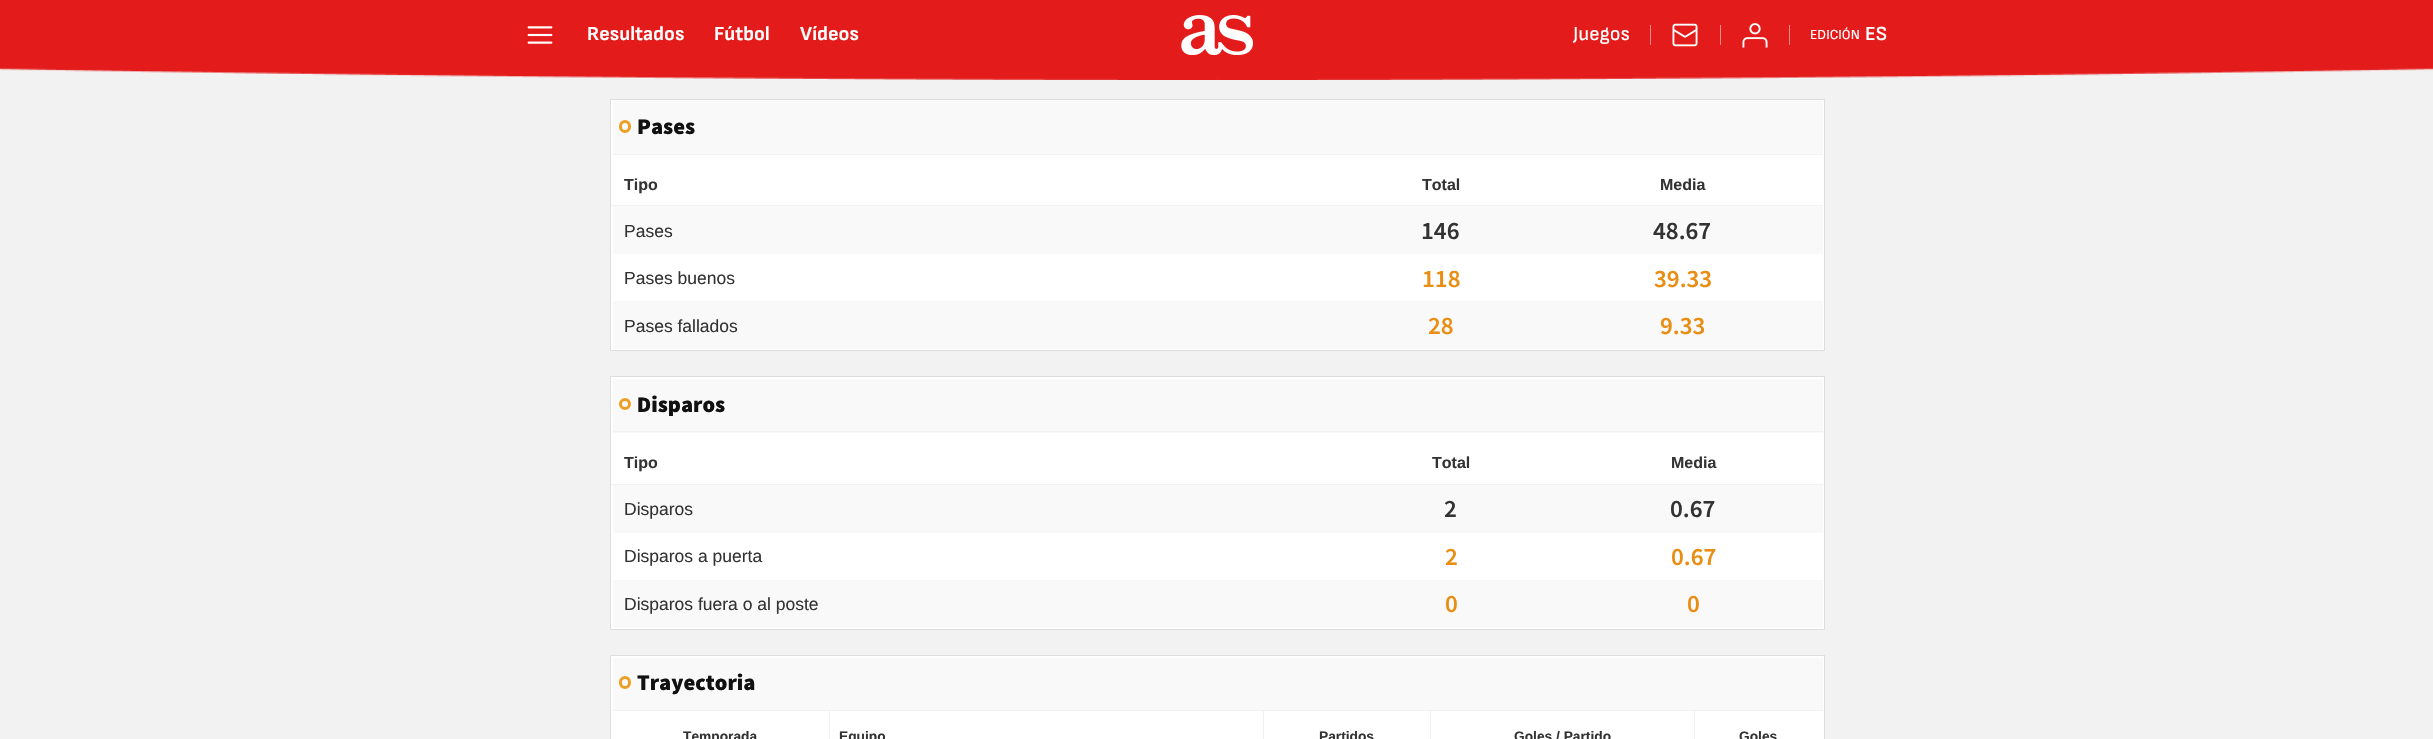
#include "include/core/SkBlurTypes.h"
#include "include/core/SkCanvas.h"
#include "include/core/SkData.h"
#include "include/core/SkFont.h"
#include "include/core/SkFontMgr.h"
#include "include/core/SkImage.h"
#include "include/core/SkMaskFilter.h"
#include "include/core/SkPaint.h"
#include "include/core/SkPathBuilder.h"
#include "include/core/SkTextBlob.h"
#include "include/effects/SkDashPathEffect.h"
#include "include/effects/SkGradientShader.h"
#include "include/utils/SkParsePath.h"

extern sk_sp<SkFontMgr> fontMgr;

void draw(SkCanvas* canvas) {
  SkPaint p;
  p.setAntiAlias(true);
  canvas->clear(SkColorSetRGB(242, 242, 242));
  canvas->drawImageRect(SkImages::DeferredFromEncodedData(SkData::MakeFromFileName("images/1.png")), SkRect::MakeLTRB(0, 0, 2433, 80), SkSamplingOptions());
  canvas->drawImageRect(SkImages::DeferredFromEncodedData(SkData::MakeFromFileName("images/2.png")), SkRect::MakeLTRB(527, 26, 553, 44), SkSamplingOptions());
  canvas->drawImageRect(SkImages::DeferredFromEncodedData(SkData::MakeFromFileName("images/3.png")), SkRect::MakeLTRB(1181, 15, 1253, 55), SkSamplingOptions());
  p.setColor(SkColorSetRGB(242, 141, 141));
  canvas->drawRect(SkRect::MakeLTRB(1650, 25, 1651, 45), p);
  canvas->drawImageRect(SkImages::DeferredFromEncodedData(SkData::MakeFromFileName("images/4.png")), SkRect::MakeLTRB(1672, 23, 1698, 47), SkSamplingOptions());
  canvas->drawRect(SkRect::MakeLTRB(1720, 25, 1721, 45), p);
  canvas->drawImageRect(SkImages::DeferredFromEncodedData(SkData::MakeFromFileName("images/5.png")), SkRect::MakeLTRB(1742, 23, 1768, 48), SkSamplingOptions());
  canvas->drawRect(SkRect::MakeLTRB(1789, 25, 1790, 45), p);
  p.setColor(SK_ColorWHITE);
  canvas->drawRect(SkRect::MakeLTRB(610.5f, 99.5f, 1824.5f, 350.5f), p);
  p.setStyle(SkPaint::kStroke_Style);
  p.setStrokeWidth(1);
  p.setColor(SkColorSetRGB(221, 221, 221));
  canvas->drawRect(SkRect::MakeLTRB(610.5f, 99.5f, 1824.5f, 350.5f), p);
  p.setStyle(SkPaint::kFill_Style);
  p.setColor(SkColorSetRGB(249, 249, 249));
  canvas->drawRect(SkRect::MakeLTRB(613, 101, 1823, 154), p);
  p.setColor(SkColorSetRGB(242, 242, 242));
  canvas->drawRect(SkRect::MakeLTRB(613, 154, 1823, 155), p);
  p.setStyle(SkPaint::kStroke_Style);
  p.setStrokeWidth(3);
  p.setColor(SkColorSetRGB(236, 159, 35));
  canvas->drawRoundRect(SkRect::MakeLTRB(620.5f, 121.5f, 629.5f, 131.5f), 4.5f, 4.5f, p);
  p.setStyle(SkPaint::kFill_Style);
  p.setColor(SkColorSetRGB(242, 242, 242));
  canvas->drawRect(SkRect::MakeLTRB(611, 205, 1823, 206), p);
  p.setColor(SkColorSetRGB(249, 249, 249));
  canvas->drawRect(SkRect::MakeLTRB(613, 206, 1823, 254), p);
  canvas->drawRect(SkRect::MakeLTRB(613, 301, 1823, 349), p);
  p.setColor(SK_ColorWHITE);
  canvas->drawRect(SkRect::MakeLTRB(610.5f, 376.5f, 1824.5f, 629.5f), p);
  p.setStyle(SkPaint::kStroke_Style);
  p.setStrokeWidth(1);
  p.setColor(SkColorSetRGB(221, 221, 221));
  canvas->drawRect(SkRect::MakeLTRB(610.5f, 376.5f, 1824.5f, 629.5f), p);
  p.setStyle(SkPaint::kFill_Style);
  p.setColor(SkColorSetRGB(249, 249, 249));
  canvas->drawRect(SkRect::MakeLTRB(613, 379, 1823, 433), p);
  p.setColor(SkColorSetRGB(242, 242, 242));
  canvas->drawRect(SkRect::MakeLTRB(613, 431, 1823, 432), p);
  p.setStyle(SkPaint::kStroke_Style);
  p.setStrokeWidth(3);
  p.setColor(SkColorSetRGB(236, 159, 35));
  canvas->drawCircle(625, 404, 4.5f, p);
  p.setStyle(SkPaint::kFill_Style);
  p.setColor(SkColorSetRGB(242, 242, 242));
  canvas->drawRect(SkRect::MakeLTRB(611, 484, 1823, 485), p);
  p.setColor(SkColorSetRGB(249, 249, 249));
  canvas->drawRect(SkRect::MakeLTRB(613, 485, 1823, 533), p);
  canvas->drawRect(SkRect::MakeLTRB(613, 580, 1823, 628), p);
  p.setColor(SK_ColorWHITE);
  canvas->drawRect(SkRect::MakeLTRB(610.5f, 655.5f, 1824.5f, 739.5f), p);
  p.setStyle(SkPaint::kStroke_Style);
  p.setStrokeWidth(1);
  p.setColor(SkColorSetRGB(221, 221, 221));
  canvas->drawRect(SkRect::MakeLTRB(610.5f, 655.5f, 1824.5f, 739.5f), p);
  p.setStyle(SkPaint::kFill_Style);
  p.setColor(SkColorSetRGB(249, 249, 249));
  canvas->drawRect(SkRect::MakeLTRB(613, 658, 1823, 710), p);
  p.setColor(SkColorSetRGB(242, 242, 242));
  canvas->drawRect(SkRect::MakeLTRB(613, 710, 1823, 711), p);
  p.setStyle(SkPaint::kStroke_Style);
  p.setStrokeWidth(3);
  p.setColor(SkColorSetRGB(236, 159, 35));
  canvas->drawRoundRect(SkRect::MakeLTRB(620.5f, 677.5f, 629.5f, 687.5f), 4.5f, 4.5f, p);
  p.setStyle(SkPaint::kFill_Style);
  p.setColor(SkColorSetRGB(240, 240, 240));
  canvas->drawRect(SkRect::MakeLTRB(829, 711, 830, 739), p);
  canvas->drawRect(SkRect::MakeLTRB(1263, 711, 1264, 739), p);
  canvas->drawRect(SkRect::MakeLTRB(1430, 711, 1431, 739), p);
  canvas->drawRect(SkRect::MakeLTRB(1694, 711, 1695, 739), p);
  SkFont font1(fontMgr->matchFamilyStyle("Sofia Sans", SkFontStyle::Bold()), 20);
  font1.setSubpixel(true);
  p.setColor(SK_ColorWHITE);
  canvas->drawString("Resultados", 587, 40, font1, p);
  canvas->drawString("Fútbol", 714, 40, font1, p);
  canvas->drawString("Vídeos", 800, 40, font1, p);
  SkFont font2(fontMgr->matchFamilyStyle("Sofia Sans", SkFontStyle::Normal()), 20);
  font2.setSubpixel(true);
  canvas->drawString("Juegos", 1573, 40, font2, p);
  SkFont font3(fontMgr->matchFamilyStyle("Sofia Sans", SkFontStyle::Normal()), 13.75f);
  font3.setSubpixel(true);
  canvas->drawString("EDICIÓN", 1810, 39, font3, p);
  SkFont font4(fontMgr->matchFamilyStyle("Sofia Sans", SkFontStyle(600, SkFontStyle::kNormal_Width, SkFontStyle::kUpright_Slant)), 20);
  font4.setSubpixel(true);
  canvas->drawString("ES", 1865, 40, font4, p);
  SkFont font5(fontMgr->matchFamilyStyle("Source Sans Pro", SkFontStyle(900, SkFontStyle::kNormal_Width, SkFontStyle::kUpright_Slant)), 22.5f);
  font5.setSubpixel(true);
  p.setColor(SkColorSetRGB(17, 17, 17));
  canvas->drawString("Pases", 637, 134, font5, p);
  SkFont font6(fontMgr->matchFamilyStyle("Liberation Sans", SkFontStyle::Bold()), 16);
  font6.setSubpixel(true);
  p.setColor(SkColorSetRGB(51, 51, 51));
  canvas->drawString("Tipo", 624, 190, font6, p);
  canvas->drawString("Total", 1422, 190, font6, p);
  canvas->drawString("Media", 1660, 190, font6, p);
  SkFont font7(fontMgr->matchFamilyStyle("Liberation Sans", SkFontStyle::Normal()), 17.5f);
  font7.setSubpixel(true);
  canvas->drawString("Pases", 624, 237, font7, p);
  SkFont font8(fontMgr->matchFamilyStyle("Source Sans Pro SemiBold", SkFontStyle(600, SkFontStyle::kNormal_Width, SkFontStyle::kUpright_Slant)), 25);
  font8.setSubpixel(true);
  canvas->drawString("146", 1421, 239, font8, p);
  canvas->drawString("48.67", 1653, 239, font8, p);
  canvas->drawString("Pases buenos", 624, 284, font7, p);
  p.setColor(SkColorSetRGB(233, 141, 19));
  canvas->drawString("118", 1422, 287, font8, p);
  canvas->drawString("39.33", 1654, 287, font8, p);
  p.setColor(SkColorSetRGB(51, 51, 51));
  canvas->drawString("Pases fallados", 624, 332, font7, p);
  p.setColor(SkColorSetRGB(233, 141, 19));
  canvas->drawString("28", 1428, 334, font8, p);
  canvas->drawString("9.33", 1660, 334, font8, p);
  p.setColor(SkColorSetRGB(17, 17, 17));
  canvas->drawString("Disparos", 637, 412, font5, p);
  p.setColor(SkColorSetRGB(51, 51, 51));
  canvas->drawString("Tipo", 624, 468, font6, p);
  canvas->drawString("Total", 1432, 468, font6, p);
  canvas->drawString("Media", 1671, 468, font6, p);
  canvas->drawString("Disparos", 624, 515, font7, p);
  canvas->drawString("2", 1444, 517, font8, p);
  canvas->drawString("0.67", 1670, 517, font8, p);
  canvas->drawString("Disparos a puerta", 624, 562, font7, p);
  p.setColor(SkColorSetRGB(233, 141, 19));
  canvas->drawString("2", 1445, 565, font8, p);
  canvas->drawString("0.67", 1671, 565, font8, p);
  p.setColor(SkColorSetRGB(51, 51, 51));
  canvas->drawString("Disparos fuera o al poste", 624, 610, font7, p);
  p.setColor(SkColorSetRGB(233, 141, 19));
  canvas->drawString("0", 1445, 612, font8, p);
  canvas->drawString("0", 1687, 612, font8, p);
  p.setColor(SkColorSetRGB(17, 17, 17));
  canvas->drawString("Trayectoria", 637, 690, font5, p);
  SkFont font9(fontMgr->matchFamilyStyle("Liberation Sans", SkFontStyle::Bold()), 13.75f);
  font9.setSubpixel(true);
  p.setColor(SkColorSetRGB(51, 51, 51));
  canvas->drawString("Temporada", 683, 741, font9, p);
  canvas->drawString("Equipo", 839, 741, font9, p);
  canvas->drawString("Partidos", 1319, 741, font9, p);
  canvas->drawString("Goles / Partido", 1514, 741, font9, p);
  canvas->drawString("Goles", 1739, 741, font9, p);
}
